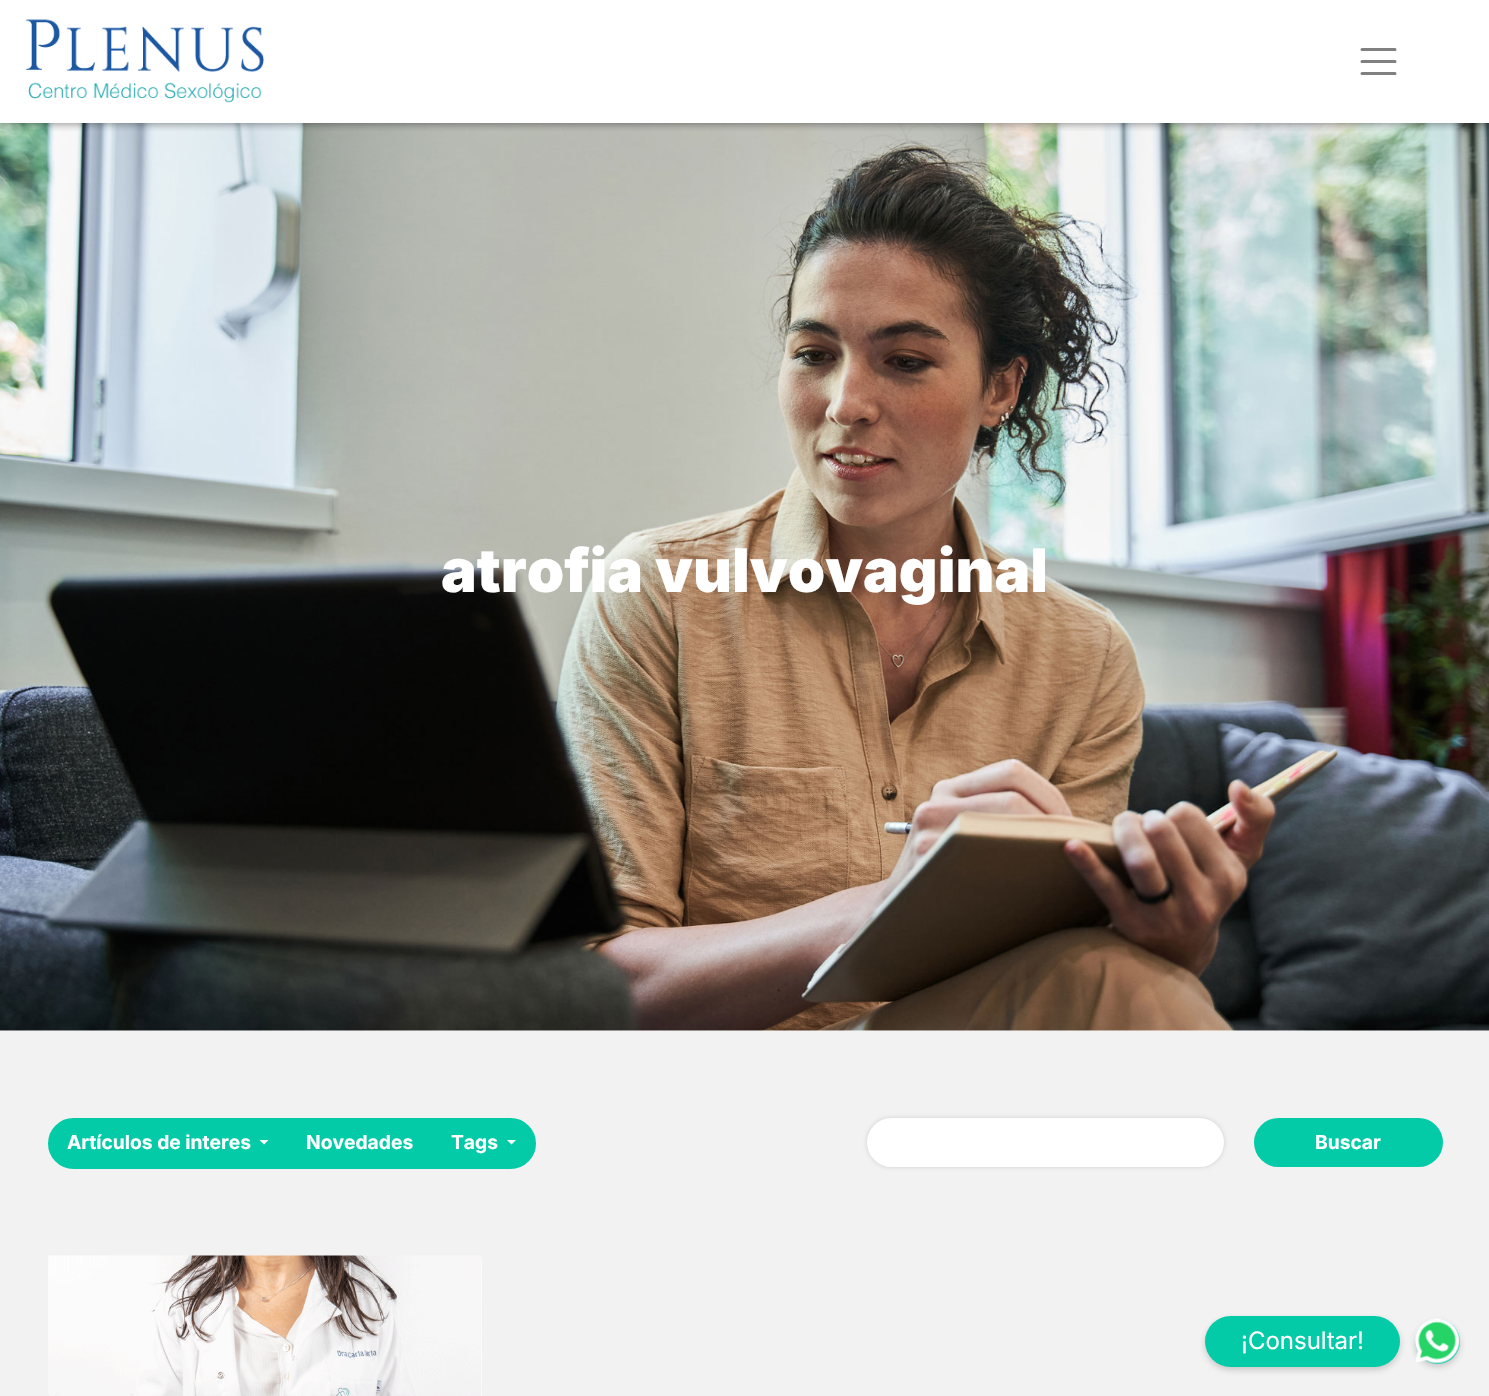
#include "include/core/SkBlurTypes.h"
#include "include/core/SkCanvas.h"
#include "include/core/SkData.h"
#include "include/core/SkFont.h"
#include "include/core/SkFontMgr.h"
#include "include/core/SkImage.h"
#include "include/core/SkMaskFilter.h"
#include "include/core/SkPaint.h"
#include "include/core/SkPathBuilder.h"
#include "include/core/SkTextBlob.h"
#include "include/effects/SkDashPathEffect.h"
#include "include/effects/SkGradientShader.h"
#include "include/utils/SkParsePath.h"

extern sk_sp<SkFontMgr> fontMgr;

void draw(SkCanvas* canvas) {
  SkPaint p;
  p.setAntiAlias(true);
  canvas->clear(SK_ColorWHITE);
  canvas->drawImageRect(SkImages::DeferredFromEncodedData(SkData::MakeFromFileName("images/2.png")), SkRect::MakeLTRB(0, 123, 1489, 1031), SkSamplingOptions());
  canvas->save();
  canvas->clipRect(SkRect::MakeLTRB(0, 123, 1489, 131));
  p.setColor(SkColorSetARGB(128, 0, 0, 0));
  p.setMaskFilter(SkMaskFilter::MakeBlur(kNormal_SkBlurStyle, 4.5f));
  canvas->drawRect(SkRect::MakeLTRB(0, 0, 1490, 123), p);
  p.setMaskFilter(nullptr);
  canvas->restore();
  canvas->drawImageRect(SkImages::DeferredFromEncodedData(SkData::MakeFromFileName("images/1.png")), SkRect::MakeLTRB(25, 19, 264, 103), SkSamplingOptions());
  p.setStyle(SkPaint::kStroke_Style);
  p.setStrokeWidth(3);
  p.setStrokeCap(SkPaint::kRound_Cap);
  p.setColor(SkColorSetRGB(128, 128, 128));
  canvas->drawPath(SkPathBuilder().moveTo(1362, 49.5f).lineTo(1395, 49.5f).moveTo(1362, 61.5f).lineTo(1395, 61.5f).moveTo(1362, 73.5f).lineTo(1395, 73.5f).detach(), p);
  p.setStyle(SkPaint::kFill_Style);
  p.setColor(SkColorSetRGB(242, 242, 242));
  canvas->drawRect(SkRect::MakeLTRB(0, 1031, 1489, 1396), p);
  p.setColor(SkColorSetRGB(4, 203, 167));
  canvas->drawPath(SkPathBuilder().moveTo(73.5f, 1119).lineTo(287, 1119).lineTo(287, 1168).lineTo(73.5f, 1168).cubicTo(60, 1168, 49, 1157, 49, 1143.5f).cubicTo(49, 1130, 60, 1119, 73.5f, 1119).close().detach(), p);
  p.setStyle(SkPaint::kStroke_Style);
  p.setStrokeWidth(2);
  p.setStrokeCap(SkPaint::kButt_Cap);
  canvas->drawPath(SkPathBuilder().moveTo(73.5f, 1119).lineTo(287, 1119).lineTo(287, 1168).lineTo(73.5f, 1168).cubicTo(60, 1168, 49, 1157, 49, 1143.5f).cubicTo(49, 1130, 60, 1119, 73.5f, 1119).close().detach(), p);
  p.setStyle(SkPaint::kFill_Style);
  p.setColor(SK_ColorWHITE);
  canvas->drawPath(SkPathBuilder().moveTo(259.5f, 1140).lineTo(268.5f, 1140).lineTo(264, 1144.5f).close().detach(), p);
  p.setColor(SkColorSetRGB(4, 203, 167));
  canvas->drawRect(SkRect::MakeLTRB(288, 1118, 431, 1169), p);
  canvas->drawPath(SkPathBuilder().moveTo(432, 1119).lineTo(510.5f, 1119).cubicTo(524, 1119, 535, 1130, 535, 1143.5f).cubicTo(535, 1157, 524, 1168, 510.5f, 1168).lineTo(432, 1168).close().detach(), p);
  p.setStyle(SkPaint::kStroke_Style);
  canvas->drawPath(SkPathBuilder().moveTo(432, 1119).lineTo(510.5f, 1119).cubicTo(524, 1119, 535, 1130, 535, 1143.5f).cubicTo(535, 1157, 524, 1168, 510.5f, 1168).lineTo(432, 1168).close().detach(), p);
  p.setStyle(SkPaint::kFill_Style);
  p.setColor(SK_ColorWHITE);
  canvas->drawPath(SkPathBuilder().moveTo(507, 1140).lineTo(516, 1140).lineTo(511.5f, 1144.5f).close().detach(), p);
  p.setColor(SkColorSetARGB(38, 0, 0, 0));
  p.setMaskFilter(SkMaskFilter::MakeBlur(kNormal_SkBlurStyle, 2));
  canvas->drawRoundRect(SkRect::MakeLTRB(867, 1118, 1224, 1167), 24.5f, 24.5f, p);
  p.setMaskFilter(nullptr);
  p.setColor(SK_ColorWHITE);
  canvas->drawRoundRect(SkRect::MakeLTRB(867, 1118, 1224, 1167), 24.5f, 24.5f, p);
  p.setColor(SkColorSetRGB(4, 203, 167));
  canvas->drawRoundRect(SkRect::MakeLTRB(1254, 1118, 1443, 1167), 24.5f, 24.5f, p);
  p.setColor(SK_ColorWHITE);
  canvas->drawRoundRect(SkRect::MakeLTRB(48, 1256, 482, 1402), 6, 6, p);
  canvas->drawImageRect(SkImages::DeferredFromEncodedData(SkData::MakeFromFileName("images/3.png")), SkRect::MakeLTRB(48, 1255, 482, 1396), SkSamplingOptions());
  p.setColor(SkColorSetARGB(59, 58, 58, 58));
  p.setMaskFilter(SkMaskFilter::MakeBlur(kNormal_SkBlurStyle, 3));
  canvas->drawRoundRect(SkRect::MakeLTRB(1205, 1319, 1400, 1370), 25.5f, 25.5f, p);
  p.setMaskFilter(nullptr);
  p.setColor(SkColorSetRGB(4, 203, 167));
  canvas->drawRoundRect(SkRect::MakeLTRB(1205, 1316, 1400, 1367), 25.5f, 25.5f, p);
  p.setColor(SkColorSetARGB(59, 58, 58, 58));
  p.setMaskFilter(SkMaskFilter::MakeBlur(kNormal_SkBlurStyle, 3));
  canvas->drawRoundRect(SkRect::MakeLTRB(1415, 1322, 1460, 1367), 22.5f, 22.5f, p);
  p.setMaskFilter(nullptr);
  p.setColor(SkColorSetRGB(4, 203, 167));
  canvas->drawCircle(1437.5f, 1341.5f, 22.5f, p);
  canvas->drawImageRect(SkImages::DeferredFromEncodedData(SkData::MakeFromFileName("images/4.png")), SkRect::MakeLTRB(1415, 1318, 1460, 1364), SkSamplingOptions());
  SkFont font1(fontMgr->matchFamilyStyle("Inter", SkFontStyle(900, SkFontStyle::kNormal_Width, SkFontStyle::kUpright_Slant)), 60);
  font1.setSubpixel(true);
  p.setColor(SK_ColorWHITE);
  canvas->drawString("atrofia vulvovaginal", 441, 592, font1, p);
  SkFont font2(fontMgr->matchFamilyStyle("Inter", SkFontStyle::Bold()), 19.25f);
  font2.setSubpixel(true);
  canvas->drawString("Artículos de interes", 67, 1149, font2, p);
  canvas->drawString("Novedades", 306, 1149, font2, p);
  canvas->drawString("Tags", 451, 1149, font2, p);
  canvas->drawString("Buscar", 1315, 1149, font2, p);
  SkFont font3(fontMgr->matchFamilyStyle("Inter", SkFontStyle::Normal()), 24);
  font3.setSubpixel(true);
  canvas->drawString("¡Consultar!", 1241, 1349, font3, p);
}
